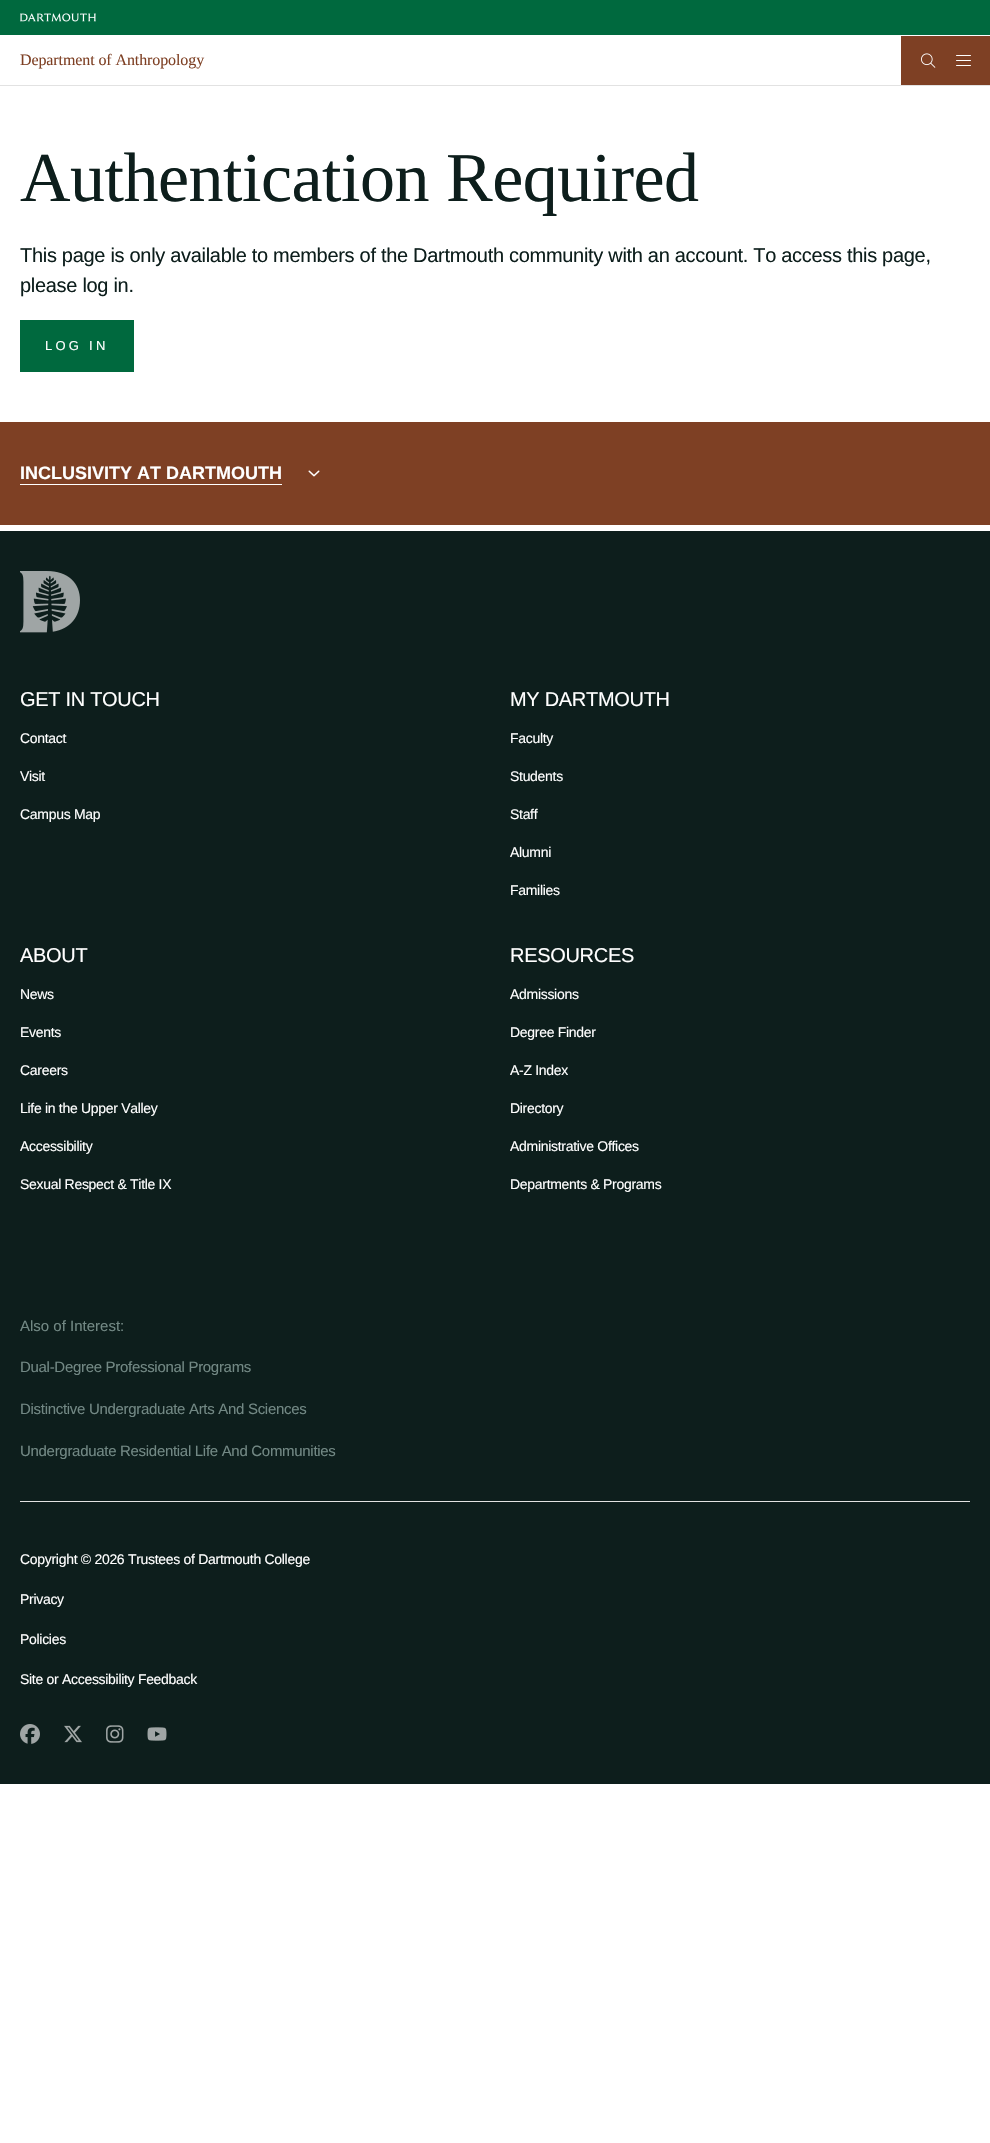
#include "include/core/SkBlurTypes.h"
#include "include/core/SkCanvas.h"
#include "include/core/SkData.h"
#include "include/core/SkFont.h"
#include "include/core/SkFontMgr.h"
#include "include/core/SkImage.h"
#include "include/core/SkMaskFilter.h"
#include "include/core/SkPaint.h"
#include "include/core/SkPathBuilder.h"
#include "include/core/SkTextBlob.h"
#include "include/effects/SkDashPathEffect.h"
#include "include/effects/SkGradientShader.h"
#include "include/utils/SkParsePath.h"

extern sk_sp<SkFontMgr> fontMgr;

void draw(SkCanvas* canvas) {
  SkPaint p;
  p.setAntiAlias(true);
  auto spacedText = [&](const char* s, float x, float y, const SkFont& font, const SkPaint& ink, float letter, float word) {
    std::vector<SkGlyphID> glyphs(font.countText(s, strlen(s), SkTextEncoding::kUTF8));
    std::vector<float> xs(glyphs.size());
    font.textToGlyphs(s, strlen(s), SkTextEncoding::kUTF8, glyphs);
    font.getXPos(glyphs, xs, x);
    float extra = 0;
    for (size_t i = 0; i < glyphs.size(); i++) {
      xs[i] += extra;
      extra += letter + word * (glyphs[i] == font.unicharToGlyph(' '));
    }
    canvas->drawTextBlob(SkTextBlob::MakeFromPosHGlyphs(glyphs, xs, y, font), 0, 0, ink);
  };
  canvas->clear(SK_ColorWHITE);
  p.setColor(SkColorSetRGB(226, 226, 226));
  canvas->drawRect(SkRect::MakeLTRB(0, 85, 990, 86), p);
  p.setColor(SkColorSetRGB(0, 105, 62));
  canvas->drawRect(SkRect::MakeLTRB(0, 0, 990, 35), p);
  canvas->drawImageRect(SkImages::DeferredFromEncodedData(SkData::MakeFromFileName("images/1.png")), SkRect::MakeLTRB(20, 13, 96, 22), SkSamplingOptions());
  p.setColor(SkColorSetRGB(126, 64, 36));
  canvas->drawRect(SkRect::MakeLTRB(901, 36, 990, 85), p);
  canvas->drawImageRect(SkImages::DeferredFromEncodedData(SkData::MakeFromFileName("images/2.png")), SkRect::MakeLTRB(921, 53, 936, 68), SkSamplingOptions());
  p.setColor(SK_ColorWHITE);
  canvas->drawRoundRect(SkRect::MakeLTRB(956, 55, 971, 56), 0.5f, 0.5f, p);
  canvas->drawRoundRect(SkRect::MakeLTRB(956, 60, 971, 61), 0.5f, 0.5f, p);
  canvas->drawRoundRect(SkRect::MakeLTRB(956, 65, 971, 66), 0.5f, 0.5f, p);
  p.setColor(SkColorSetRGB(0, 105, 62));
  canvas->drawRect(SkRect::MakeLTRB(20, 320, 134, 372), p);
  p.setColor(SkColorSetRGB(126, 64, 36));
  canvas->drawRect(SkRect::MakeLTRB(0, 422, 990, 525), p);
  p.setColor(SK_ColorWHITE);
  canvas->drawRect(SkRect::MakeLTRB(20, 484, 282, 485), p);
  canvas->drawImageRect(SkImages::DeferredFromEncodedData(SkData::MakeFromFileName("images/3.png")), SkRect::MakeLTRB(308, 470, 320, 477), SkSamplingOptions());
  p.setColor(SkColorSetRGB(13, 30, 28));
  canvas->drawRect(SkRect::MakeLTRB(0, 531, 990, 1784), p);
  canvas->drawImageRect(SkImages::DeferredFromEncodedData(SkData::MakeFromFileName("images/4.png")), SkRect::MakeLTRB(20, 571, 80, 633), SkSamplingOptions());
  p.setColor(SkColorSetRGB(226, 226, 226));
  canvas->drawRect(SkRect::MakeLTRB(20, 1501, 970, 1502), p);
  canvas->drawImageRect(SkImages::DeferredFromEncodedData(SkData::MakeFromFileName("images/5.png")), SkRect::MakeLTRB(20, 1724, 40, 1744), SkSamplingOptions());
  canvas->drawImageRect(SkImages::DeferredFromEncodedData(SkData::MakeFromFileName("images/6.png")), SkRect::MakeLTRB(64, 1725, 82, 1743), SkSamplingOptions());
  canvas->drawImageRect(SkImages::DeferredFromEncodedData(SkData::MakeFromFileName("images/7.png")), SkRect::MakeLTRB(106, 1725, 124, 1743), SkSamplingOptions());
  canvas->drawImageRect(SkImages::DeferredFromEncodedData(SkData::MakeFromFileName("images/8.png")), SkRect::MakeLTRB(147, 1727, 167, 1741), SkSamplingOptions());
  SkFont font1(fontMgr->matchFamilyStyle("Liberation Serif", SkFontStyle::Normal()), 16);
  font1.setSubpixel(true);
  p.setColor(SkColorSetRGB(126, 64, 36));
  spacedText("Department of Anthropology", 20, 65, font1, p, -0.1f, 0);
  SkFont font2(fontMgr->matchFamilyStyle("Liberation Serif", SkFontStyle::Normal()), 70);
  font2.setSubpixel(true);
  p.setColor(SkColorSetRGB(13, 30, 28));
  spacedText("Authentication Required", 20, 201, font2, p, -0.5f, 0);
  SkFont font3(fontMgr->matchFamilyStyle("Liberation Sans", SkFontStyle::Normal()), 20);
  font3.setSubpixel(true);
  spacedText("This page is only available to members of the Dartmouth community with an account. To access this page,", 20, 262, font3, p, -0.3f, 0);
  spacedText("please log in.", 20, 292, font3, p, -0.3f, 0);
  SkFont font4(fontMgr->matchFamilyStyle("Liberation Sans", SkFontStyle::Normal()), 13);
  font4.setSubpixel(true);
  p.setColor(SK_ColorWHITE);
  spacedText("LOG IN", 45, 350, font4, p, 3.25f, 0);
  SkFont font5(fontMgr->matchFamilyStyle("Liberation Sans", SkFontStyle::Bold()), 18);
  font5.setSubpixel(true);
  canvas->drawString("INCLUSIVITY AT DARTMOUTH", 20, 479, font5, p);
  spacedText("GET IN TOUCH", 20, 706, font3, p, -0.3f, 0);
  SkFont font6(fontMgr->matchFamilyStyle("Liberation Sans", SkFontStyle::Normal()), 14);
  font6.setSubpixel(true);
  spacedText("Contact", 20, 743, font6, p, -0.3f, 0);
  spacedText("Visit", 20, 781, font6, p, -0.3f, 0);
  spacedText("Campus Map", 20, 819, font6, p, -0.3f, 0);
  spacedText("MY DARTMOUTH", 510, 706, font3, p, -0.3f, 0);
  spacedText("Faculty", 510, 743, font6, p, -0.3f, 0);
  spacedText("Students", 510, 781, font6, p, -0.3f, 0);
  spacedText("Staff", 510, 819, font6, p, -0.3f, 0);
  spacedText("Alumni", 510, 857, font6, p, -0.3f, 0);
  spacedText("Families", 510, 895, font6, p, -0.3f, 0);
  spacedText("ABOUT", 20, 962, font3, p, -0.3f, 0);
  spacedText("News", 20, 999, font6, p, -0.3f, 0);
  spacedText("Events", 20, 1037, font6, p, -0.3f, 0);
  spacedText("Careers", 20, 1075, font6, p, -0.3f, 0);
  spacedText("Life in the Upper Valley", 20, 1113, font6, p, -0.3f, 0);
  spacedText("Accessibility", 20, 1151, font6, p, -0.3f, 0);
  spacedText("Sexual Respect & Title IX", 20, 1189, font6, p, -0.3f, 0);
  spacedText("RESOURCES", 510, 962, font3, p, -0.3f, 0);
  spacedText("Admissions", 510, 999, font6, p, -0.3f, 0);
  spacedText("Degree Finder", 510, 1037, font6, p, -0.3f, 0);
  spacedText("A-Z Index", 510, 1075, font6, p, -0.3f, 0);
  spacedText("Directory", 510, 1113, font6, p, -0.3f, 0);
  spacedText("Administrative Offices", 510, 1151, font6, p, -0.3f, 0);
  spacedText("Departments & Programs", 510, 1189, font6, p, -0.3f, 0);
  SkFont font7(fontMgr->matchFamilyStyle("Liberation Sans", SkFontStyle::Normal()), 15);
  font7.setSubpixel(true);
  p.setColor(SkColorSetRGB(114, 136, 132));
  canvas->drawString("Also of Interest:", 20, 1331, font7, p);
  spacedText("Dual-Degree Professional Programs", 20, 1372, font7, p, -0.3f, 0);
  spacedText("Distinctive Undergraduate Arts And Sciences", 20, 1414, font7, p, -0.3f, 0);
  spacedText("Undergraduate Residential Life And Communities", 20, 1456, font7, p, -0.3f, 0);
  p.setColor(SK_ColorWHITE);
  spacedText("Copyright © 2026 Trustees of Dartmouth College", 20, 1564, font6, p, -0.3f, 0);
  spacedText("Privacy", 20, 1604, font6, p, -0.3f, 0);
  spacedText("Policies", 20, 1644, font6, p, -0.3f, 0);
  spacedText("Site or Accessibility Feedback", 20, 1684, font6, p, -0.3f, 0);
}
